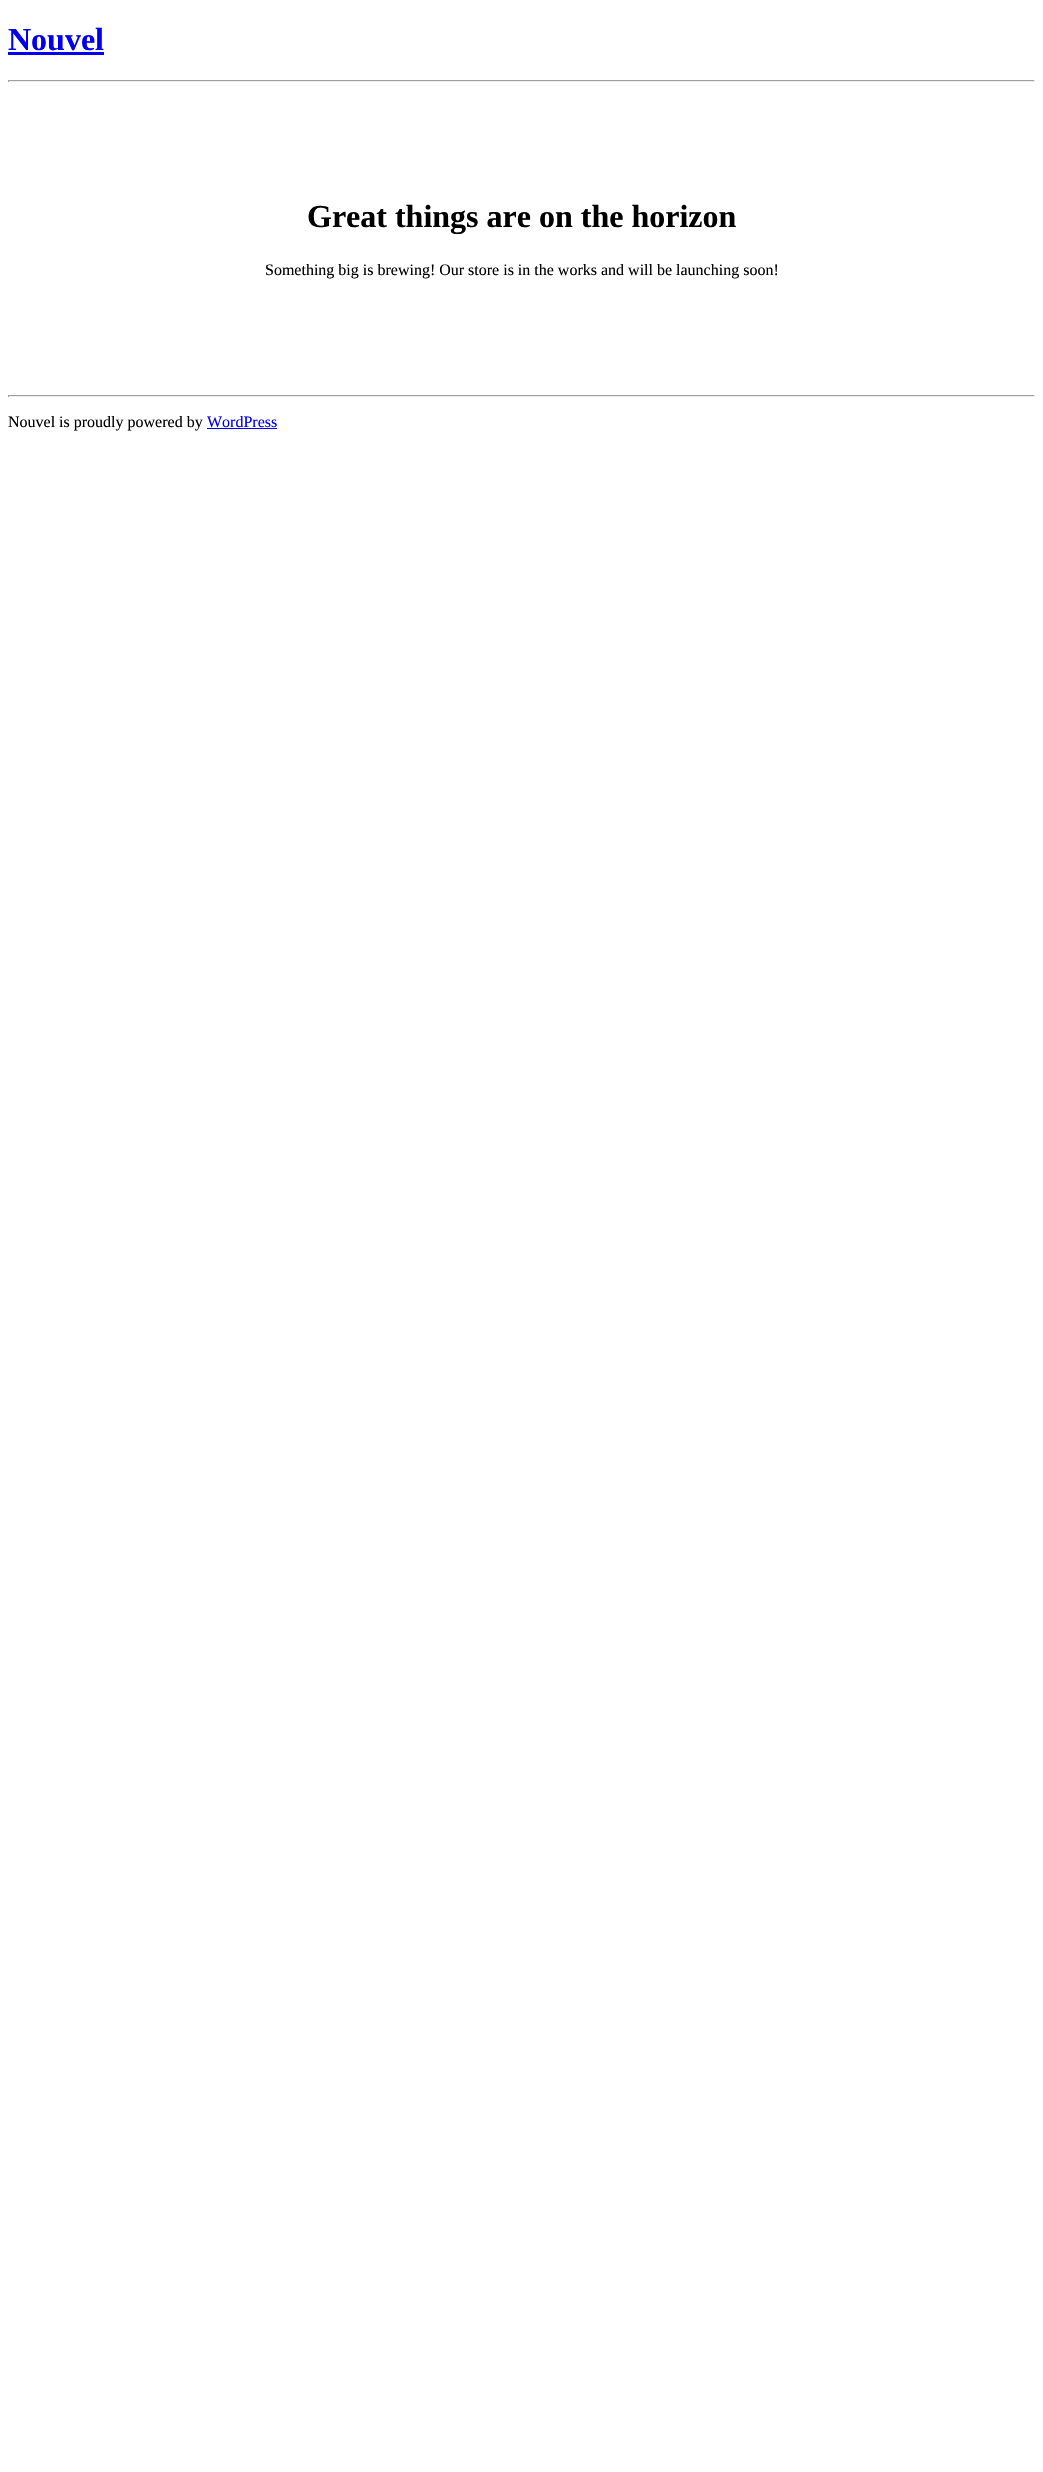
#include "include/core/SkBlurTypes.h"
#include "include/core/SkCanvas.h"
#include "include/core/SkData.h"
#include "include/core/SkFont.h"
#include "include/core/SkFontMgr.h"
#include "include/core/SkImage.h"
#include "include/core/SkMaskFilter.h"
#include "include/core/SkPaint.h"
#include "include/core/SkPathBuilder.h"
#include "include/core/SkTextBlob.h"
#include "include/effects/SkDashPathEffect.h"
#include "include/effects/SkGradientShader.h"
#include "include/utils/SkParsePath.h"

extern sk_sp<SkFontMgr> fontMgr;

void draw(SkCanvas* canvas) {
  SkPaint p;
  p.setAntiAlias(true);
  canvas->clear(SK_ColorWHITE);
  p.setColor(SkColorSetRGB(0, 0, 238));
  canvas->drawRect(SkRect::MakeLTRB(8, 52, 104, 55), p);
  p.setColor(SkColorSetRGB(159, 159, 159));
  canvas->drawRect(SkRect::MakeLTRB(8, 80, 1035, 81), p);
  p.setColor(SkColorSetRGB(238, 238, 238));
  canvas->drawRect(SkRect::MakeLTRB(1034, 80, 1035, 82), p);
  canvas->drawRect(SkRect::MakeLTRB(8, 81, 1035, 82), p);
  p.setColor(SkColorSetRGB(159, 159, 159));
  canvas->drawRect(SkRect::MakeLTRB(8, 80, 9, 82), p);
  canvas->drawRect(SkRect::MakeLTRB(8, 395, 1035, 396), p);
  p.setColor(SkColorSetRGB(238, 238, 238));
  canvas->drawRect(SkRect::MakeLTRB(1034, 395, 1035, 397), p);
  canvas->drawRect(SkRect::MakeLTRB(8, 396, 1035, 397), p);
  p.setColor(SkColorSetRGB(159, 159, 159));
  canvas->drawRect(SkRect::MakeLTRB(8, 395, 9, 397), p);
  p.setColor(SkColorSetRGB(0, 0, 238));
  canvas->drawRect(SkRect::MakeLTRB(207, 428, 277, 429), p);
  SkFont font1(fontMgr->matchFamilyStyle("Liberation Serif", SkFontStyle::Bold()), 32);
  font1.setSubpixel(true);
  canvas->drawString("Nouvel", 8, 50, font1, p);
  p.setColor(SK_ColorBLACK);
  canvas->drawString("Great things are on the horizon", 307, 227, font1, p);
  SkFont font2(fontMgr->matchFamilyStyle("Liberation Serif", SkFontStyle::Normal()), 16);
  font2.setSubpixel(true);
  canvas->drawString("Something big is brewing! Our store is in the works and will be launching soon!", 265, 275, font2, p);
  canvas->drawString("Nouvel is proudly powered by", 8, 427, font2, p);
  p.setColor(SkColorSetRGB(0, 0, 238));
  canvas->drawString("WordPress", 207, 427, font2, p);
}
